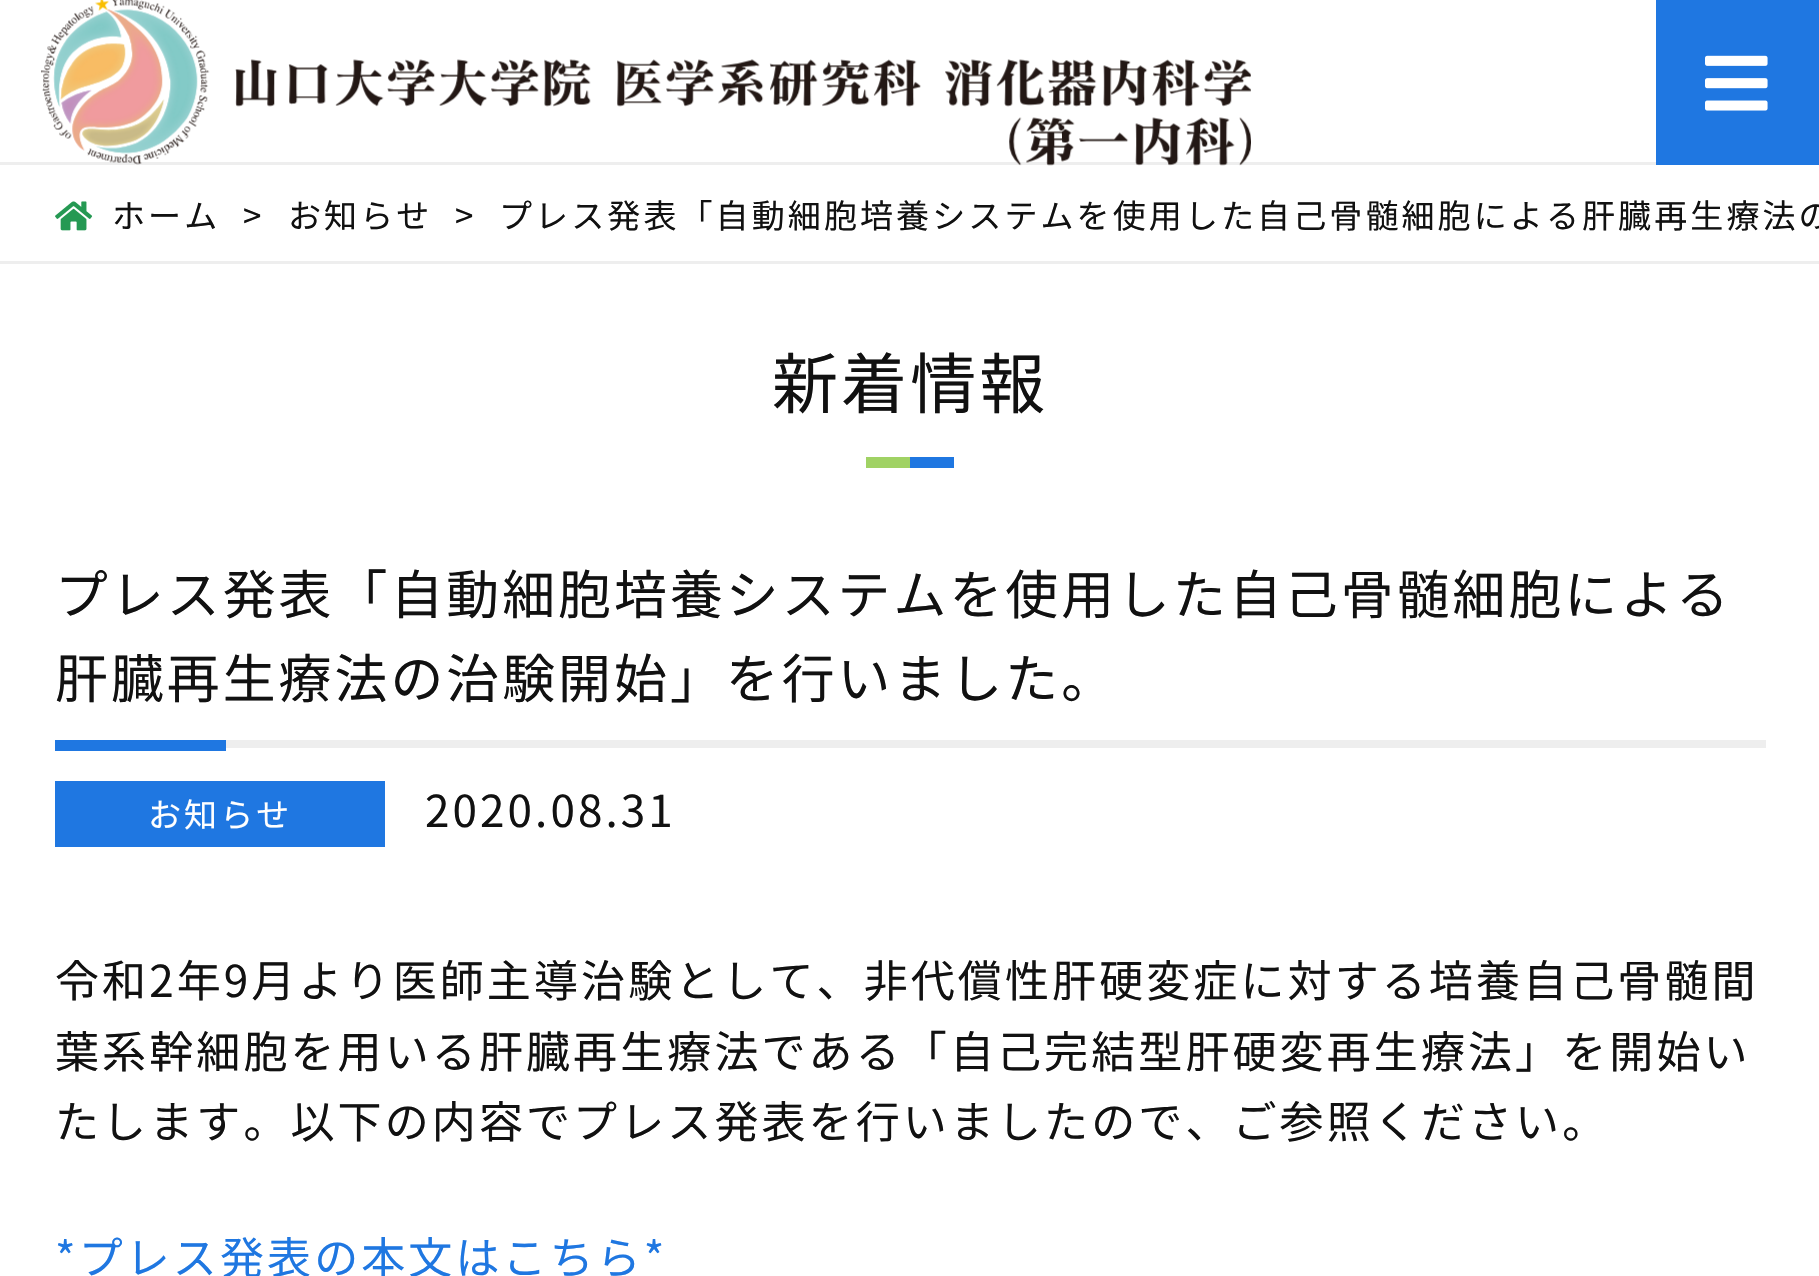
#include "include/core/SkBlurTypes.h"
#include "include/core/SkCanvas.h"
#include "include/core/SkData.h"
#include "include/core/SkFont.h"
#include "include/core/SkFontMgr.h"
#include "include/core/SkImage.h"
#include "include/core/SkMaskFilter.h"
#include "include/core/SkPaint.h"
#include "include/core/SkPathBuilder.h"
#include "include/core/SkTextBlob.h"
#include "include/effects/SkDashPathEffect.h"
#include "include/effects/SkGradientShader.h"
#include "include/utils/SkParsePath.h"

extern sk_sp<SkFontMgr> fontMgr;

void draw(SkCanvas* canvas) {
  SkPaint p;
  p.setAntiAlias(true);
  auto spacedText = [&](const char* s, float x, float y, const SkFont& font, const SkPaint& ink, float letter, float word) {
    std::vector<SkGlyphID> glyphs(font.countText(s, strlen(s), SkTextEncoding::kUTF8));
    std::vector<float> xs(glyphs.size());
    font.textToGlyphs(s, strlen(s), SkTextEncoding::kUTF8, glyphs);
    font.getXPos(glyphs, xs, x);
    float extra = 0;
    for (size_t i = 0; i < glyphs.size(); i++) {
      xs[i] += extra;
      extra += letter + word * (glyphs[i] == font.unicharToGlyph(' '));
    }
    canvas->drawTextBlob(SkTextBlob::MakeFromPosHGlyphs(glyphs, xs, y, font), 0, 0, ink);
  };
  canvas->clear(SK_ColorWHITE);
  p.setColor(SkColorSetRGB(238, 238, 238));
  canvas->drawRect(SkRect::MakeLTRB(0, 162, 1656, 165), p);
  canvas->drawImageRect(SkImages::DeferredFromEncodedData(SkData::MakeFromFileName("images/1.png")), SkRect::MakeLTRB(41, 0, 1251, 166), SkSamplingOptions());
  p.setColor(SkColorSetRGB(31, 119, 225));
  canvas->drawRect(SkRect::MakeLTRB(1656, 0, 1819, 165), p);
  canvas->drawImageRect(SkImages::DeferredFromEncodedData(SkData::MakeFromFileName("images/2.png")), SkRect::MakeLTRB(1705, 55, 1768, 111), SkSamplingOptions());
  p.setColor(SkColorSetRGB(238, 238, 238));
  canvas->drawRect(SkRect::MakeLTRB(0, 261, 1819, 264), p);
  canvas->drawImageRect(SkImages::DeferredFromEncodedData(SkData::MakeFromFileName("images/3.png")), SkRect::MakeLTRB(55, 201, 93, 231), SkSamplingOptions());
  p.setColor(SkColorSetRGB(160, 210, 100));
  canvas->drawRect(SkRect::MakeLTRB(866, 457, 910, 468), p);
  p.setColor(SkColorSetRGB(31, 119, 225));
  canvas->drawRect(SkRect::MakeLTRB(910, 457, 954, 468), p);
  p.setColor(SkColorSetRGB(238, 238, 238));
  canvas->drawRect(SkRect::MakeLTRB(226, 740, 1766, 748), p);
  p.setColor(SkColorSetRGB(31, 119, 225));
  canvas->drawRect(SkRect::MakeLTRB(55, 740, 226, 751), p);
  canvas->drawRect(SkRect::MakeLTRB(55, 781, 385, 847), p);
  SkFont font1(fontMgr->matchFamilyStyle("Noto Sans JP", SkFontStyle::Normal()), 33);
  font1.setSubpixel(true);
  p.setColor(SkColorSetRGB(17, 17, 17));
  spacedText("ホーム", 112, 228, font1, p, 3.1f, 0);
  spacedText(">", 243, 228, font1, p, 3.1f, 0);
  spacedText("お知らせ", 288, 228, font1, p, 3.1f, 0);
  spacedText(">", 455, 228, font1, p, 3.1f, 0);
  spacedText("プレス発表「自動細胞培養システムを使用した自己骨髄細胞による肝臓再生療法の", 499, 228, font1, p, 3.1f, 0);
  SkFont font2(fontMgr->matchFamilyStyle("Noto Sans JP", SkFontStyle::Normal()), 66);
  font2.setSubpixel(true);
  spacedText("新着情報", 772, 408, font2, p, 3.1f, 0);
  SkFont font3(fontMgr->matchFamilyStyle("Noto Sans JP", SkFontStyle::Normal()), 52.8f);
  font3.setSubpixel(true);
  spacedText("プレス発表「自動細胞培養システムを使用した自己骨髄細胞による", 55, 614, font3, p, 3.1f, 0);
  spacedText("肝臓再生療法の治験開始」を行いました。", 55, 698, font3, p, 3.1f, 0);
  p.setColor(SK_ColorWHITE);
  spacedText("お知らせ", 148, 827, font1, p, 3.1f, 0);
  SkFont font4(fontMgr->matchFamilyStyle("Noto Sans JP", SkFontStyle::Normal()), 44);
  font4.setSubpixel(true);
  p.setColor(SkColorSetRGB(17, 17, 17));
  spacedText("2020.08.31", 425, 827, font4, p, 3.1f, 0);
  spacedText("令和2年9月より医師主導治験として、非代償性肝硬変症に対する培養自己骨髄間", 55, 997, font4, p, 3.1f, 0);
  spacedText("葉系幹細胞を用いる肝臓再生療法である「自己完結型肝硬変再生療法」を開始い", 55, 1068, font4, p, 3.1f, 0);
  spacedText("たします。以下の内容でプレス発表を行いましたので、ご参照ください。", 55, 1138, font4, p, 3.1f, 0);
  p.setColor(SkColorSetRGB(31, 119, 225));
  spacedText("*プレス発表の本文はこちら*", 55, 1274, font4, p, 3.1f, 0);
}
